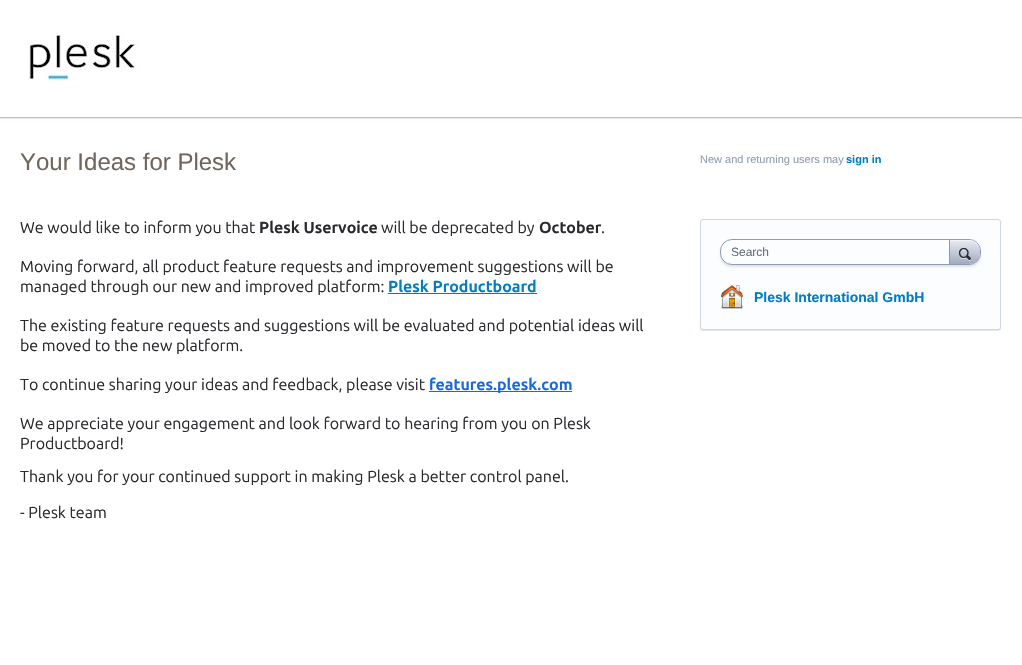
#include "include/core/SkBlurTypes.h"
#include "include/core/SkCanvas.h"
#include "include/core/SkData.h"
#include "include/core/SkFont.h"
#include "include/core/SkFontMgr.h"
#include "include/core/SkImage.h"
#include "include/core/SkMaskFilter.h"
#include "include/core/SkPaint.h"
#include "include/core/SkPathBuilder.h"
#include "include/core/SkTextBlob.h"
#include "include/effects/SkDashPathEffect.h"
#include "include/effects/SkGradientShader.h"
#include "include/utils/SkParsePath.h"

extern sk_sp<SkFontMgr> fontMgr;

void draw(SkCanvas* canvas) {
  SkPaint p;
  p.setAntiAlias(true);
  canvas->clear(SK_ColorWHITE);
  p.setColor(SkColorSetRGB(191, 191, 191));
  canvas->drawRect(SkRect::MakeLTRB(0, 117, 1022, 118), p);
  canvas->drawImageRect(SkImages::DeferredFromEncodedData(SkData::MakeFromFileName("images/1.png")), SkRect::MakeLTRB(28, 32, 140, 87), SkSamplingOptions());
  p.setColor(SkColorSetRGB(227, 232, 242));
  canvas->drawRect(SkRect::MakeLTRB(0, 118, 1022, 119), p);
  p.setColor(SkColorSetRGB(0, 124, 191));
  canvas->drawRect(SkRect::MakeLTRB(388, 293, 537, 294), p);
  p.setColor(SkColorSetRGB(24, 104, 219));
  canvas->drawRect(SkRect::MakeLTRB(429, 391, 572, 392), p);
  p.setColor(SkColorSetARGB(26, 0, 0, 0));
  p.setMaskFilter(SkMaskFilter::MakeBlur(kNormal_SkBlurStyle, 0.5f));
  canvas->drawRoundRect(SkRect::MakeLTRB(700, 220, 1001, 331), 3, 3, p);
  p.setMaskFilter(nullptr);
  p.setColor(SkColorSetRGB(252, 253, 255));
  canvas->drawRoundRect(SkRect::MakeLTRB(700.5f, 219.5f, 1000.5f, 329.5f), 2.5f, 2.5f, p);
  p.setStyle(SkPaint::kStroke_Style);
  p.setStrokeWidth(1);
  p.setColor(SkColorSetRGB(207, 215, 230));
  canvas->drawRoundRect(SkRect::MakeLTRB(700.5f, 219.5f, 1000.5f, 329.5f), 2.5f, 2.5f, p);
  p.setStyle(SkPaint::kFill_Style);
  p.setColor(SkColorSetARGB(26, 0, 0, 0));
  p.setMaskFilter(SkMaskFilter::MakeBlur(kNormal_SkBlurStyle, 1));
  canvas->drawRoundRect(SkRect::MakeLTRB(720, 241, 981, 267), 12, 12, p);
  p.setMaskFilter(nullptr);
  p.setColor(SkColorSetRGB(252, 253, 255));
  canvas->drawRoundRect(SkRect::MakeLTRB(720.5f, 239.5f, 980.5f, 264.5f), 11.5f, 11.5f, p);
  p.setStyle(SkPaint::kStroke_Style);
  p.setColor(SkColorSetRGB(143, 155, 179));
  canvas->drawRoundRect(SkRect::MakeLTRB(720.5f, 239.5f, 980.5f, 264.5f), 11.5f, 11.5f, p);
  canvas->save();
  canvas->clipRect(SkRect::MakeLTRB(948, 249, 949, 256));
  p.setStyle(SkPaint::kFill_Style);
  p.setColor(SkColorSetARGB(26, 0, 0, 0));
  p.setMaskFilter(SkMaskFilter::MakeBlur(kNormal_SkBlurStyle, 1));
  canvas->drawRoundRect(SkRect::MakeLTRB(949, 240, 981, 265), 12, 12, p);
  p.setMaskFilter(nullptr);
  canvas->restore();
  {
    const SkColor colors[] = {SkColorSetRGB(230, 234, 242), SkColorSetRGB(162, 172, 191)};
    const float stops[] = {0, 1};
    const SkPoint ends[] = {{950, 240}, {950, 264}};
    p.setShader(SkGradientShader::MakeLinear(ends, colors, stops, 2, SkTileMode::kClamp));
    p.setAlpha(255);
  }
  canvas->drawPath(SkPathBuilder().moveTo(950, 240).lineTo(969, 240).cubicTo(975, 240, 980, 245, 980, 251).lineTo(980, 252).cubicTo(980, 258.5f, 975, 264, 969, 264).lineTo(950, 264).close().detach(), p);
  p.setShader(nullptr);
  p.setColor(SkColorSetARGB(128, 255, 255, 255));
  canvas->drawPath(SkPathBuilder().moveTo(950, 240).lineTo(950, 241).lineTo(969, 241).cubicTo(975, 241, 980, 246, 980, 252).cubicTo(980, 245.5f, 976, 240, 969, 240).close().detach(), p);
  p.setColor(SkColorSetRGB(163, 177, 204));
  canvas->drawPath(SkPathBuilder().moveTo(969, 240).cubicTo(972, 240, 975, 241, 977, 243).cubicTo(975, 241.5f, 972, 240, 969, 240).close().detach(), p);
  p.setColor(SkColorSetRGB(143, 155, 179));
  canvas->drawPath(SkPathBuilder(SkPathFillType::kEvenOdd).moveTo(980, 252).cubicTo(980, 258.5f, 976, 264, 969, 264).cubicTo(975, 264, 980, 258.5f, 980, 252).close().moveTo(977, 243).cubicTo(978.5f, 245, 980, 248, 980, 251).cubicTo(980, 248, 979, 245, 977, 243).close().detach(), p);
  canvas->drawRect(SkRect::MakeLTRB(949, 240, 950, 264), p);
  canvas->drawImageRect(SkImages::DeferredFromEncodedData(SkData::MakeFromFileName("images/2.png")), SkRect::MakeLTRB(959, 248, 971, 261), SkSamplingOptions());
  canvas->drawImageRect(SkImages::DeferredFromEncodedData(SkData::MakeFromFileName("images/3.png")), SkRect::MakeLTRB(721, 285, 744, 309), SkSamplingOptions());
  SkFont font1(fontMgr->matchFamilyStyle("Liberation Sans", SkFontStyle::Normal()), 24);
  font1.setSubpixel(true);
  p.setColor(SkColorSetRGB(111, 103, 94));
  canvas->drawString("Your Ideas for Plesk", 20, 170, font1, p);
  SkFont font2(fontMgr->matchFamilyStyle("Ubuntu", SkFontStyle::Normal()), 16);
  font2.setSubpixel(true);
  p.setColor(SkColorSetRGB(41, 42, 46));
  canvas->drawString("We would like to inform you that", 20, 233, font2, p);
  SkFont font3(fontMgr->matchFamilyStyle("Ubuntu", SkFontStyle::Bold()), 16);
  font3.setSubpixel(true);
  canvas->drawString("Plesk Uservoice", 259, 233, font3, p);
  canvas->drawString("will be deprecated by", 381, 233, font2, p);
  canvas->drawString("October", 539, 233, font3, p);
  canvas->drawString(".", 601, 233, font2, p);
  canvas->drawString("Moving forward, all product feature requests and improvement suggestions will be", 20, 272, font2, p);
  canvas->drawString("managed through our new and improved platform:", 20, 292, font2, p);
  p.setColor(SkColorSetRGB(0, 124, 191));
  canvas->drawString("Plesk Productboard", 388, 292, font3, p);
  p.setColor(SkColorSetRGB(41, 42, 46));
  canvas->drawString("The existing feature requests and suggestions will be evaluated and potential ideas will", 20, 331, font2, p);
  canvas->drawString("be moved to the new platform.", 20, 351, font2, p);
  canvas->drawString("To continue sharing your ideas and feedback, please visit", 20, 390, font2, p);
  p.setColor(SkColorSetRGB(24, 104, 219));
  canvas->drawString("features.plesk.com", 429, 390, font3, p);
  p.setColor(SkColorSetRGB(41, 42, 46));
  canvas->drawString("We appreciate your engagement and look forward to hearing from you on Plesk", 20, 429, font2, p);
  canvas->drawString("Productboard!", 20, 449, font2, p);
  canvas->drawString("Thank you for your continued support in making Plesk a better control panel.", 20, 482, font2, p);
  canvas->drawString("- Plesk team", 20, 518, font2, p);
  SkFont font4(fontMgr->matchFamilyStyle("Liberation Sans", SkFontStyle::Normal()), 11);
  font4.setSubpixel(true);
  p.setColor(SkColorSetRGB(143, 155, 179));
  canvas->drawString("New and returning users may", 700, 163, font4, p);
  SkFont font5(fontMgr->matchFamilyStyle("Liberation Sans", SkFontStyle::Bold()), 11);
  font5.setSubpixel(true);
  p.setColor(SkColorSetRGB(0, 124, 191));
  canvas->drawString("sign in", 846, 163, font5, p);
  SkFont font6(fontMgr->matchFamilyStyle("Liberation Sans", SkFontStyle::Normal()), 12);
  font6.setSubpixel(true);
  p.setColor(SkColorSetRGB(100, 107, 114));
  canvas->drawString("Search", 731, 256, font6, p);
  SkFont font7(fontMgr->matchFamilyStyle("Liberation Sans", SkFontStyle::Bold()), 14);
  font7.setSubpixel(true);
  p.setColor(SkColorSetRGB(0, 124, 191));
  canvas->drawString("Plesk International GmbH", 754, 302, font7, p);
}
